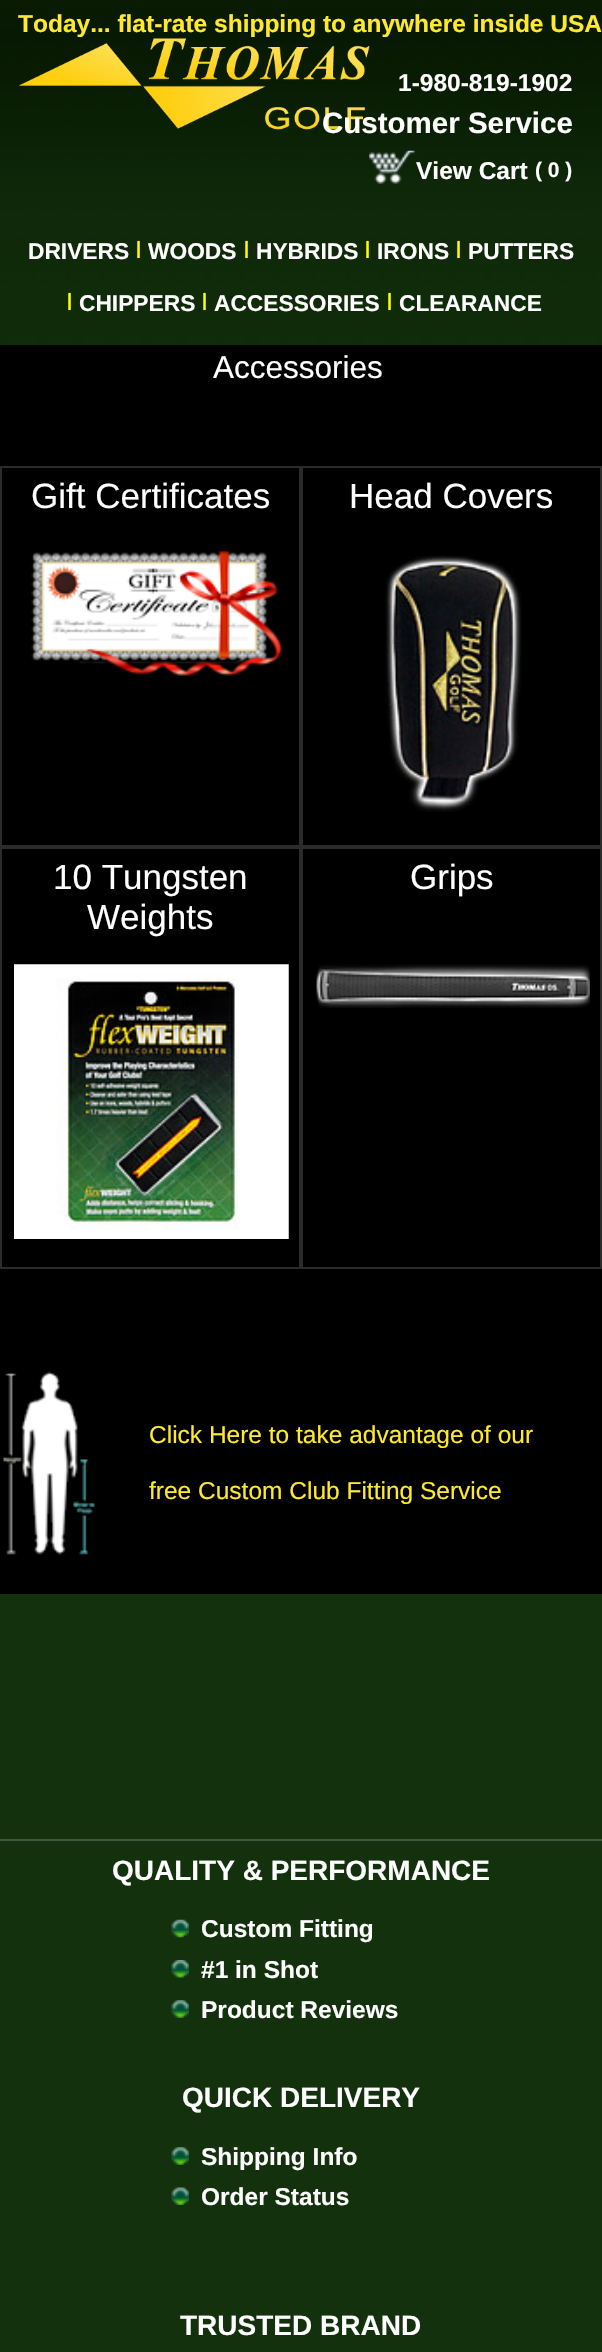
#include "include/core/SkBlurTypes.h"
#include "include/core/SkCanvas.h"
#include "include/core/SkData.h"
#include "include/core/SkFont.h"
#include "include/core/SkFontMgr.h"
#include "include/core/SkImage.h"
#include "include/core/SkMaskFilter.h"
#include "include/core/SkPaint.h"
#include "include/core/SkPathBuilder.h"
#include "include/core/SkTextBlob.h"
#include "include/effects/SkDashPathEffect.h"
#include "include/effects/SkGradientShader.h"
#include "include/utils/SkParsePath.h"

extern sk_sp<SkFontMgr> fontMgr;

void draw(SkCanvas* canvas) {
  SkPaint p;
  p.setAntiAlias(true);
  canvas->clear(SkColorSetRGB(19, 49, 13));
  canvas->drawImageRect(SkImages::DeferredFromEncodedData(SkData::MakeFromFileName("images/1.png")), SkRect::MakeLTRB(0, 0, 602, 345), SkSamplingOptions());
  canvas->drawImageRect(SkImages::DeferredFromEncodedData(SkData::MakeFromFileName("images/2.png")), SkRect::MakeLTRB(369, 150, 415, 184), SkSamplingOptions());
  canvas->drawImageRect(SkImages::DeferredFromEncodedData(SkData::MakeFromFileName("images/3.png")), SkRect::MakeLTRB(19, 38, 370, 130), SkSamplingOptions());
  p.setColor(SK_ColorBLACK);
  canvas->drawRect(SkRect::MakeLTRB(0, 345, 602, 1594), p);
  p.setStyle(SkPaint::kStroke_Style);
  p.setStrokeWidth(2);
  p.setColor(SkColorSetRGB(43, 43, 43));
  canvas->drawRect(SkRect::MakeLTRB(1, 467, 300, 846), p);
  canvas->drawImageRect(SkImages::DeferredFromEncodedData(SkData::MakeFromFileName("images/4.png")), SkRect::MakeLTRB(31, 550, 283, 676), SkSamplingOptions());
  canvas->drawRect(SkRect::MakeLTRB(302, 467, 601, 846), p);
  canvas->drawImageRect(SkImages::DeferredFromEncodedData(SkData::MakeFromFileName("images/5.png")), SkRect::MakeLTRB(385, 555, 522, 812), SkSamplingOptions());
  canvas->drawRect(SkRect::MakeLTRB(1, 848, 300, 1268), p);
  canvas->drawImageRect(SkImages::DeferredFromEncodedData(SkData::MakeFromFileName("images/6.png")), SkRect::MakeLTRB(14, 964, 289, 1239), SkSamplingOptions());
  canvas->drawRect(SkRect::MakeLTRB(302, 848, 601, 1268), p);
  canvas->drawImageRect(SkImages::DeferredFromEncodedData(SkData::MakeFromFileName("images/7.png")), SkRect::MakeLTRB(315, 964, 590, 1008), SkSamplingOptions());
  canvas->drawImageRect(SkImages::DeferredFromEncodedData(SkData::MakeFromFileName("images/8.png")), SkRect::MakeLTRB(3, 1371, 95, 1555), SkSamplingOptions());
  p.setStyle(SkPaint::kFill_Style);
  p.setColor(SkColorSetRGB(66, 88, 61));
  canvas->drawRect(SkRect::MakeLTRB(0, 1839, 602, 1841), p);
  canvas->drawImageRect(SkImages::DeferredFromEncodedData(SkData::MakeFromFileName("images/9.png")), SkRect::MakeLTRB(171, 1919, 189, 1938), SkSamplingOptions());
  canvas->drawImageRect(SkImages::DeferredFromEncodedData(SkData::MakeFromFileName("images/10.png")), SkRect::MakeLTRB(171, 1960, 189, 1978), SkSamplingOptions());
  canvas->drawImageRect(SkImages::DeferredFromEncodedData(SkData::MakeFromFileName("images/11.png")), SkRect::MakeLTRB(171, 2000, 189, 2018), SkSamplingOptions());
  canvas->drawImageRect(SkImages::DeferredFromEncodedData(SkData::MakeFromFileName("images/12.png")), SkRect::MakeLTRB(171, 2147, 189, 2165), SkSamplingOptions());
  canvas->drawImageRect(SkImages::DeferredFromEncodedData(SkData::MakeFromFileName("images/13.png")), SkRect::MakeLTRB(171, 2187, 189, 2205), SkSamplingOptions());
  SkFont font1(fontMgr->matchFamilyStyle("Liberation Sans", SkFontStyle::Bold()), 24.5f);
  font1.setSubpixel(true);
  p.setColor(SkColorSetRGB(255, 233, 47));
  canvas->drawString("Today... flat-rate shipping to anywhere inside USA", 18, 32, font1, p);
  p.setColor(SK_ColorWHITE);
  canvas->drawString("1-980-819-1902", 398, 91, font1, p);
  SkFont font2(fontMgr->matchFamilyStyle("Liberation Sans", SkFontStyle::Bold()), 29.5f);
  font2.setSubpixel(true);
  canvas->drawString("Customer Service", 322, 133, font2, p);
  canvas->drawString("View Cart", 416, 179, font1, p);
  SkFont font3(fontMgr->matchFamilyStyle("Liberation Sans", SkFontStyle::Bold()), 21);
  font3.setSubpixel(true);
  canvas->drawString("( 0 )", 535, 177, font3, p);
  SkFont font4(fontMgr->matchFamilyStyle("Liberation Sans", SkFontStyle::Bold()), 22.75f);
  font4.setSubpixel(true);
  canvas->drawString("DRIVERS", 28, 259, font4, p);
  SkFont font5(fontMgr->matchFamilyStyle("Liberation Sans", SkFontStyle::Bold()), 18);
  font5.setSubpixel(true);
  p.setColor(SkColorSetRGB(255, 255, 0));
  canvas->drawString("|", 136, 254, font5, p);
  p.setColor(SK_ColorWHITE);
  canvas->drawString("WOODS", 148, 259, font4, p);
  p.setColor(SkColorSetRGB(255, 255, 0));
  canvas->drawString("|", 244, 254, font5, p);
  p.setColor(SK_ColorWHITE);
  canvas->drawString("HYBRIDS", 256, 259, font4, p);
  p.setColor(SkColorSetRGB(255, 255, 0));
  canvas->drawString("|", 365, 254, font5, p);
  p.setColor(SK_ColorWHITE);
  canvas->drawString("IRONS", 377, 259, font4, p);
  p.setColor(SkColorSetRGB(255, 255, 0));
  canvas->drawString("|", 456, 254, font5, p);
  p.setColor(SK_ColorWHITE);
  canvas->drawString("PUTTERS", 468, 259, font4, p);
  p.setColor(SkColorSetRGB(255, 255, 0));
  canvas->drawString("|", 67, 306, font5, p);
  p.setColor(SK_ColorWHITE);
  canvas->drawString("CHIPPERS", 79, 311, font4, p);
  p.setColor(SkColorSetRGB(255, 255, 0));
  canvas->drawString("|", 202, 306, font5, p);
  p.setColor(SK_ColorWHITE);
  canvas->drawString("ACCESSORIES", 214, 311, font4, p);
  p.setColor(SkColorSetRGB(255, 255, 0));
  canvas->drawString("|", 387, 306, font5, p);
  p.setColor(SK_ColorWHITE);
  canvas->drawString("CLEARANCE", 399, 311, font4, p);
  SkFont font6(fontMgr->matchFamilyStyle("Liberation Sans", SkFontStyle::Normal()), 31.5f);
  font6.setSubpixel(true);
  canvas->drawString("Accessories", 213, 378, font6, p);
  SkFont font7(fontMgr->matchFamilyStyle("Liberation Sans", SkFontStyle::Normal()), 35);
  font7.setSubpixel(true);
  canvas->drawString("Gift Certificates", 31, 508, font7, p);
  canvas->drawString("Head Covers", 349, 508, font7, p);
  canvas->drawString("10 Tungsten", 53, 889, font7, p);
  canvas->drawString("Weights", 87, 929, font7, p);
  canvas->drawString("Grips", 410, 889, font7, p);
  SkFont font8(fontMgr->matchFamilyStyle("Liberation Sans", SkFontStyle::Normal()), 24.5f);
  font8.setSubpixel(true);
  p.setColor(SkColorSetRGB(255, 233, 47));
  canvas->drawString("Click Here to take advantage of our", 149, 1443, font8, p);
  canvas->drawString("free Custom Club Fitting Service", 149, 1499, font8, p);
  SkFont font9(fontMgr->matchFamilyStyle("Liberation Sans", SkFontStyle::Bold()), 28);
  font9.setSubpixel(true);
  p.setColor(SK_ColorWHITE);
  canvas->drawString("QUALITY & PERFORMANCE", 112, 1880, font9, p);
  canvas->drawString("Custom Fitting", 201, 1937, font1, p);
  canvas->drawString("#1 in Shot", 201, 1978, font1, p);
  canvas->drawString("Product Reviews", 201, 2018, font1, p);
  canvas->drawString("QUICK DELIVERY", 182, 2107, font9, p);
  canvas->drawString("Shipping Info", 201, 2165, font1, p);
  canvas->drawString("Order Status", 201, 2205, font1, p);
  canvas->drawString("TRUSTED BRAND", 180, 2335, font9, p);
}
